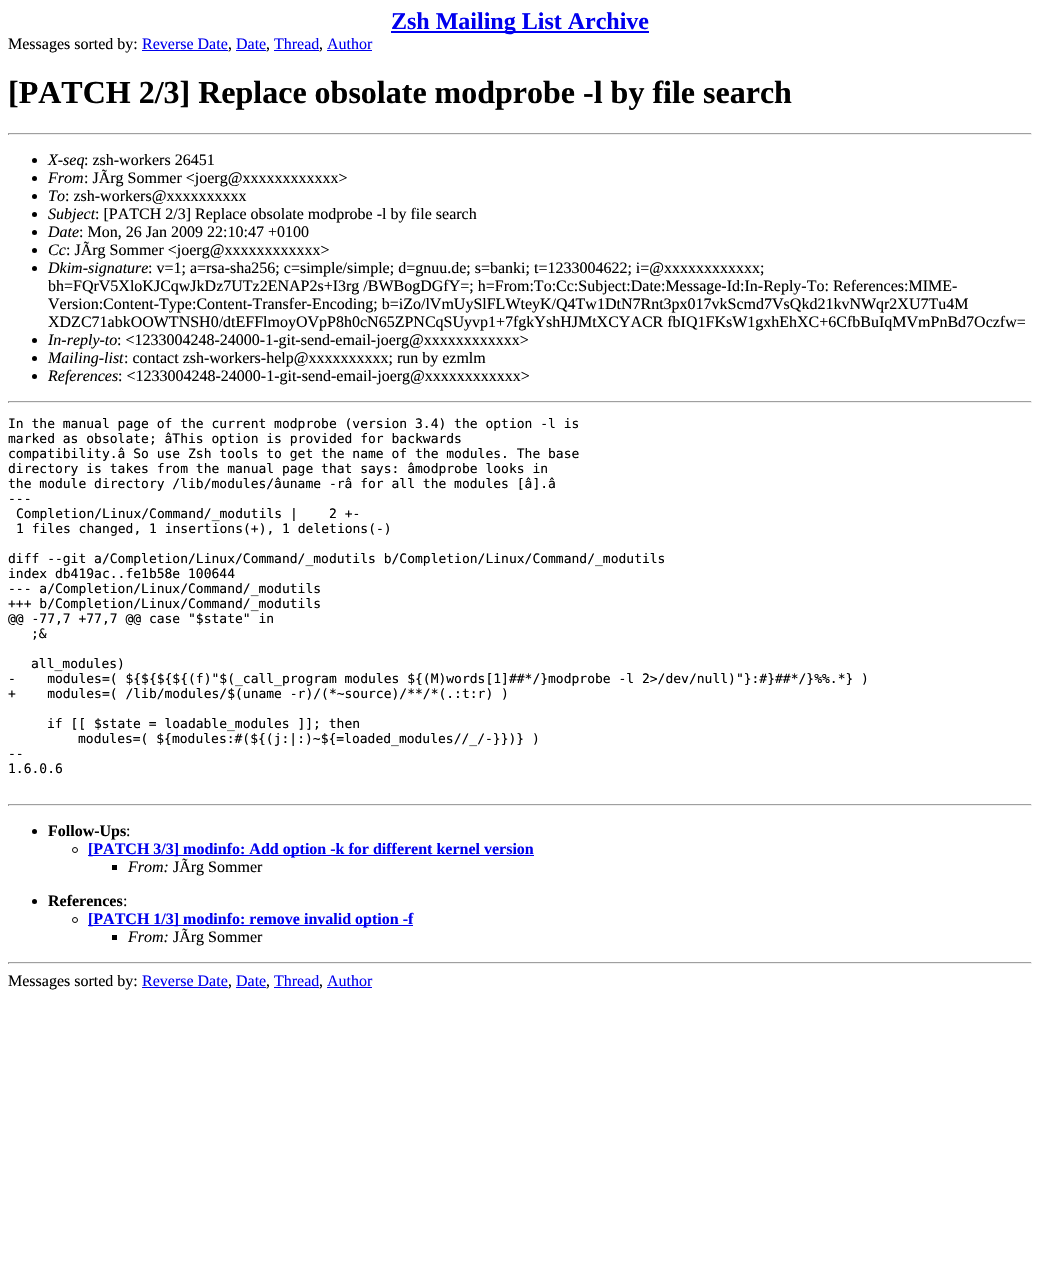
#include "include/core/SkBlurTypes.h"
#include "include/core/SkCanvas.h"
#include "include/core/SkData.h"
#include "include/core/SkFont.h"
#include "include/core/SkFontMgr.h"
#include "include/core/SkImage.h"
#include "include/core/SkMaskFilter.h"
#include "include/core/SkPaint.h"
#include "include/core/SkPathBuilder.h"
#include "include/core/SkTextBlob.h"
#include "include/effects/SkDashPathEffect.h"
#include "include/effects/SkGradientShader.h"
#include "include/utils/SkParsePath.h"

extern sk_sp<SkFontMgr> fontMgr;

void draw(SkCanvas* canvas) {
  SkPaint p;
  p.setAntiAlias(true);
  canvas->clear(SK_ColorWHITE);
  p.setColor(SkColorSetRGB(0, 0, 238));
  canvas->drawRect(SkRect::MakeLTRB(391, 31, 649, 33), p);
  canvas->drawRect(SkRect::MakeLTRB(142, 50, 228, 51), p);
  canvas->drawRect(SkRect::MakeLTRB(236, 50, 266, 51), p);
  canvas->drawRect(SkRect::MakeLTRB(274, 50, 319, 51), p);
  canvas->drawRect(SkRect::MakeLTRB(327, 50, 372, 51), p);
  p.setColor(SkColorSetRGB(159, 159, 159));
  canvas->drawRect(SkRect::MakeLTRB(8, 133, 1032, 134), p);
  p.setColor(SkColorSetRGB(238, 238, 238));
  canvas->drawRect(SkRect::MakeLTRB(1031, 133, 1032, 135), p);
  canvas->drawRect(SkRect::MakeLTRB(8, 134, 1032, 135), p);
  p.setColor(SkColorSetRGB(159, 159, 159));
  canvas->drawRect(SkRect::MakeLTRB(8, 133, 9, 135), p);
  p.setColor(SK_ColorBLACK);
  canvas->drawCircle(34.5f, 160.5f, 2.5f, p);
  canvas->drawCircle(34.5f, 178.5f, 2.5f, p);
  canvas->drawCircle(34.5f, 196.5f, 2.5f, p);
  canvas->drawCircle(34.5f, 214.5f, 2.5f, p);
  canvas->drawCircle(34.5f, 232.5f, 2.5f, p);
  canvas->drawCircle(34.5f, 250.5f, 2.5f, p);
  canvas->drawCircle(34.5f, 268.5f, 2.5f, p);
  canvas->drawCircle(34.5f, 340.5f, 2.5f, p);
  canvas->drawCircle(34.5f, 358.5f, 2.5f, p);
  canvas->drawCircle(34.5f, 376.5f, 2.5f, p);
  p.setColor(SkColorSetRGB(159, 159, 159));
  canvas->drawRect(SkRect::MakeLTRB(8, 401, 1032, 402), p);
  p.setColor(SkColorSetRGB(238, 238, 238));
  canvas->drawRect(SkRect::MakeLTRB(1031, 401, 1032, 403), p);
  canvas->drawRect(SkRect::MakeLTRB(8, 402, 1032, 403), p);
  p.setColor(SkColorSetRGB(159, 159, 159));
  canvas->drawRect(SkRect::MakeLTRB(8, 401, 9, 403), p);
  canvas->drawRect(SkRect::MakeLTRB(8, 804, 1032, 805), p);
  p.setColor(SkColorSetRGB(238, 238, 238));
  canvas->drawRect(SkRect::MakeLTRB(1031, 804, 1032, 806), p);
  canvas->drawRect(SkRect::MakeLTRB(8, 805, 1032, 806), p);
  p.setColor(SkColorSetRGB(159, 159, 159));
  canvas->drawRect(SkRect::MakeLTRB(8, 804, 9, 806), p);
  p.setColor(SK_ColorBLACK);
  canvas->drawCircle(34.5f, 831.5f, 2.5f, p);
  p.setStyle(SkPaint::kStroke_Style);
  p.setStrokeWidth(1);
  canvas->drawCircle(75, 850, 2.5f, p);
  p.setStyle(SkPaint::kFill_Style);
  p.setColor(SkColorSetRGB(0, 0, 238));
  canvas->drawRect(SkRect::MakeLTRB(88, 855, 534, 856), p);
  p.setColor(SK_ColorBLACK);
  canvas->drawRect(SkRect::MakeLTRB(112, 865, 117, 870), p);
  canvas->drawCircle(34.5f, 901.5f, 2.5f, p);
  p.setStyle(SkPaint::kStroke_Style);
  canvas->drawCircle(75, 920, 2.5f, p);
  p.setStyle(SkPaint::kFill_Style);
  p.setColor(SkColorSetRGB(0, 0, 238));
  canvas->drawRect(SkRect::MakeLTRB(88, 925, 413, 926), p);
  p.setColor(SK_ColorBLACK);
  canvas->drawRect(SkRect::MakeLTRB(112, 935, 117, 940), p);
  p.setColor(SkColorSetRGB(159, 159, 159));
  canvas->drawRect(SkRect::MakeLTRB(8, 962, 1032, 963), p);
  p.setColor(SkColorSetRGB(238, 238, 238));
  canvas->drawRect(SkRect::MakeLTRB(1031, 962, 1032, 964), p);
  canvas->drawRect(SkRect::MakeLTRB(8, 963, 1032, 964), p);
  p.setColor(SkColorSetRGB(159, 159, 159));
  canvas->drawRect(SkRect::MakeLTRB(8, 962, 9, 964), p);
  p.setColor(SkColorSetRGB(0, 0, 238));
  canvas->drawRect(SkRect::MakeLTRB(142, 987, 228, 988), p);
  canvas->drawRect(SkRect::MakeLTRB(236, 987, 266, 988), p);
  canvas->drawRect(SkRect::MakeLTRB(274, 987, 319, 988), p);
  canvas->drawRect(SkRect::MakeLTRB(327, 987, 372, 988), p);
  SkFont font1(fontMgr->matchFamilyStyle("Liberation Serif", SkFontStyle::Bold()), 24);
  font1.setSubpixel(true);
  canvas->drawString("Zsh Mailing List Archive", 391, 29, font1, p);
  SkFont font2(fontMgr->matchFamilyStyle("Liberation Serif", SkFontStyle::Normal()), 16);
  font2.setSubpixel(true);
  p.setColor(SK_ColorBLACK);
  canvas->drawString("Messages sorted by:", 8, 49, font2, p);
  p.setColor(SkColorSetRGB(0, 0, 238));
  canvas->drawString("Reverse Date", 142, 49, font2, p);
  p.setColor(SK_ColorBLACK);
  canvas->drawString(",", 228, 49, font2, p);
  p.setColor(SkColorSetRGB(0, 0, 238));
  canvas->drawString("Date", 236, 49, font2, p);
  p.setColor(SK_ColorBLACK);
  canvas->drawString(",", 266, 49, font2, p);
  p.setColor(SkColorSetRGB(0, 0, 238));
  canvas->drawString("Thread", 274, 49, font2, p);
  p.setColor(SK_ColorBLACK);
  canvas->drawString(",", 319, 49, font2, p);
  p.setColor(SkColorSetRGB(0, 0, 238));
  canvas->drawString("Author", 327, 49, font2, p);
  SkFont font3(fontMgr->matchFamilyStyle("Liberation Serif", SkFontStyle::Bold()), 32);
  font3.setSubpixel(true);
  p.setColor(SK_ColorBLACK);
  canvas->drawString("[PATCH 2/3] Replace obsolate modprobe -l by file search", 8, 103, font3, p);
  SkFont font4(fontMgr->matchFamilyStyle("Liberation Serif", SkFontStyle::Italic()), 16);
  font4.setSubpixel(true);
  canvas->drawString("X-seq", 48, 165, font4, p);
  canvas->drawString(": zsh-workers 26451", 84, 165, font2, p);
  canvas->drawString("From", 48, 183, font4, p);
  canvas->drawString(": JÃrg Sommer <joerg@xxxxxxxxxxxx>", 84, 183, font2, p);
  canvas->drawString("To", 48, 201, font4, p);
  canvas->drawString(": zsh-workers@xxxxxxxxxx", 65, 201, font2, p);
  canvas->drawString("Subject", 48, 219, font4, p);
  canvas->drawString(": [PATCH 2/3] Replace obsolate modprobe -l by file search", 95, 219, font2, p);
  canvas->drawString("Date", 48, 237, font4, p);
  canvas->drawString(": Mon, 26 Jan 2009 22:10:47 +0100", 79, 237, font2, p);
  canvas->drawString("Cc", 48, 255, font4, p);
  canvas->drawString(": JÃrg Sommer <joerg@xxxxxxxxxxxx>", 66, 255, font2, p);
  canvas->drawString("Dkim-signature", 48, 273, font4, p);
  canvas->drawString(": v=1; a=rsa-sha256; c=simple/simple; d=gnuu.de; s=banki; t=1233004622; i=@xxxxxxxxxxxx;", 148, 273, font2, p);
  canvas->drawString("bh=FQrV5XloKJCqwJkDz7UTz2ENAP2s+I3rg /BWBogDGfY=; h=From:To:Cc:Subject:Date:Message-Id:In-Reply-To: References:MIME-", 48, 291, font2, p);
  canvas->drawString("Version:Content-Type:Content-Transfer-Encoding; b=iZo/lVmUySlFLWteyK/Q4Tw1DtN7Rnt3px017vkScmd7VsQkd21kvNWqr2XU7Tu4M", 48, 309, font2, p);
  canvas->drawString("XDZC71abkOOWTNSH0/dtEFFlmoyOVpP8h0cN65ZPNCqSUyvp1+7fgkYshHJMtXCYACR fbIQ1FKsW1gxhEhXC+6CfbBuIqMVmPnBd7Oczfw=", 48, 327, font2, p);
  canvas->drawString("In-reply-to", 48, 345, font4, p);
  canvas->drawString(": <1233004248-24000-1-git-send-email-joerg@xxxxxxxxxxxx>", 117, 345, font2, p);
  canvas->drawString("Mailing-list", 48, 363, font4, p);
  canvas->drawString(": contact zsh-workers-help@xxxxxxxxxx; run by ezmlm", 124, 363, font2, p);
  canvas->drawString("References", 48, 381, font4, p);
  canvas->drawString(": <1233004248-24000-1-git-send-email-joerg@xxxxxxxxxxxx>", 118, 381, font2, p);
  SkFont font5(fontMgr->matchFamilyStyle("DejaVu Sans Mono", SkFontStyle::Normal()), 13);
  font5.setSubpixel(true);
  canvas->drawString("In the manual page of the current modprobe (version 3.4) the option -l is", 8, 428, font5, p);
  canvas->drawString("marked as obsolate; âThis option is provided for backwards", 8, 443, font5, p);
  canvas->drawString("compatibility.â So use Zsh tools to get the name of the modules. The base", 8, 458, font5, p);
  canvas->drawString("directory is takes from the manual page that says: âmodprobe looks in", 8, 473, font5, p);
  canvas->drawString("the module directory /lib/modules/âuname -râ for all the modules [â].â", 8, 488, font5, p);
  canvas->drawString("---", 8, 503, font5, p);
  canvas->drawString("Completion/Linux/Command/_modutils |    2 +-", 16, 518, font5, p);
  canvas->drawString("1 files changed, 1 insertions(+), 1 deletions(-)", 16, 533, font5, p);
  canvas->drawString("diff --git a/Completion/Linux/Command/_modutils b/Completion/Linux/Command/_modutils", 8, 563, font5, p);
  canvas->drawString("index db419ac..fe1b58e 100644", 8, 578, font5, p);
  canvas->drawString("--- a/Completion/Linux/Command/_modutils", 8, 593, font5, p);
  canvas->drawString("+++ b/Completion/Linux/Command/_modutils", 8, 608, font5, p);
  canvas->drawString("@@ -77,7 +77,7 @@ case \"$state\" in", 8, 623, font5, p);
  canvas->drawString(";&", 31, 638, font5, p);
  canvas->drawString("all_modules)", 31, 668, font5, p);
  canvas->drawString("-    modules=( ${${${${(f)\"$(_call_program modules ${(M)words[1]##*/}modprobe -l 2>/dev/null)\"}:#}##*/}%%.*} )", 8, 683, font5, p);
  canvas->drawString("+    modules=( /lib/modules/$(uname -r)/(*~source)/**/*(.:t:r) )", 8, 698, font5, p);
  canvas->drawString("if [[ $state = loadable_modules ]]; then", 47, 728, font5, p);
  canvas->drawString("modules=( ${modules:#(${(j:|:)~${=loaded_modules//_/-}})} )", 78, 743, font5, p);
  canvas->drawString("--", 8, 758, font5, p);
  canvas->drawString("1.6.0.6", 8, 773, font5, p);
  SkFont font6(fontMgr->matchFamilyStyle("Liberation Serif", SkFontStyle::Bold()), 16);
  font6.setSubpixel(true);
  canvas->drawString("Follow-Ups", 48, 836, font6, p);
  canvas->drawString(":", 126, 836, font2, p);
  p.setColor(SkColorSetRGB(0, 0, 238));
  canvas->drawString("[PATCH 3/3] modinfo: Add option -k for different kernel version", 88, 854, font6, p);
  p.setColor(SK_ColorBLACK);
  canvas->drawString("From:", 128, 872, font4, p);
  canvas->drawString("JÃrg Sommer", 173, 872, font2, p);
  canvas->drawString("References", 48, 906, font6, p);
  canvas->drawString(":", 123, 906, font2, p);
  p.setColor(SkColorSetRGB(0, 0, 238));
  canvas->drawString("[PATCH 1/3] modinfo: remove invalid option -f", 88, 924, font6, p);
  p.setColor(SK_ColorBLACK);
  canvas->drawString("From:", 128, 942, font4, p);
  canvas->drawString("JÃrg Sommer", 173, 942, font2, p);
  canvas->drawString("Messages sorted by:", 8, 986, font2, p);
  p.setColor(SkColorSetRGB(0, 0, 238));
  canvas->drawString("Reverse Date", 142, 986, font2, p);
  p.setColor(SK_ColorBLACK);
  canvas->drawString(",", 228, 986, font2, p);
  p.setColor(SkColorSetRGB(0, 0, 238));
  canvas->drawString("Date", 236, 986, font2, p);
  p.setColor(SK_ColorBLACK);
  canvas->drawString(",", 266, 986, font2, p);
  p.setColor(SkColorSetRGB(0, 0, 238));
  canvas->drawString("Thread", 274, 986, font2, p);
  p.setColor(SK_ColorBLACK);
  canvas->drawString(",", 319, 986, font2, p);
  p.setColor(SkColorSetRGB(0, 0, 238));
  canvas->drawString("Author", 327, 986, font2, p);
}
